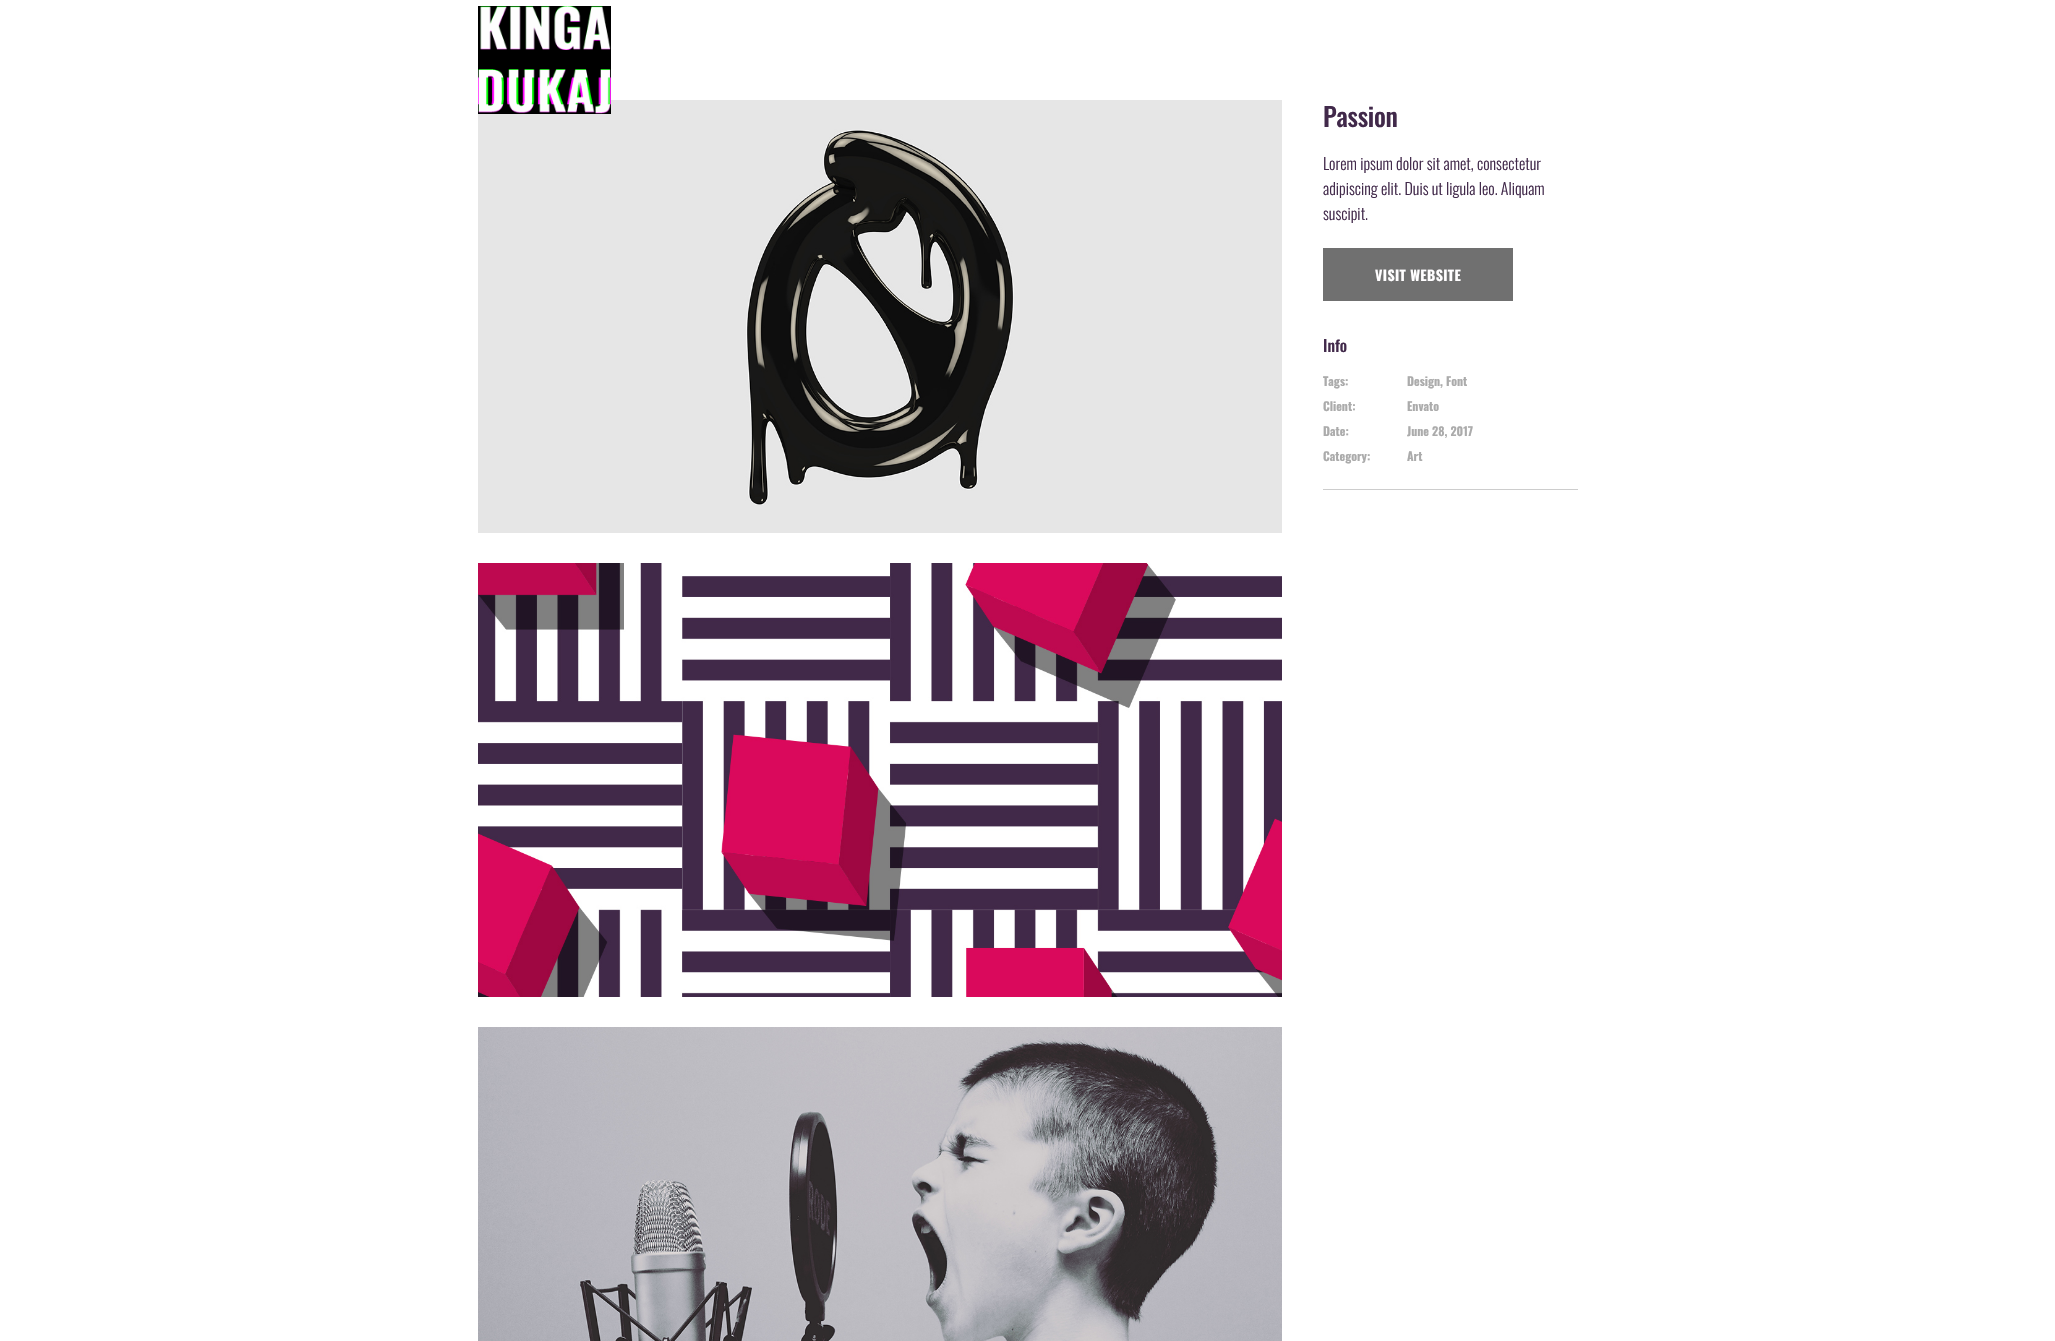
#include "include/core/SkBlurTypes.h"
#include "include/core/SkCanvas.h"
#include "include/core/SkData.h"
#include "include/core/SkFont.h"
#include "include/core/SkFontMgr.h"
#include "include/core/SkImage.h"
#include "include/core/SkMaskFilter.h"
#include "include/core/SkPaint.h"
#include "include/core/SkPathBuilder.h"
#include "include/core/SkTextBlob.h"
#include "include/effects/SkDashPathEffect.h"
#include "include/effects/SkGradientShader.h"
#include "include/utils/SkParsePath.h"

extern sk_sp<SkFontMgr> fontMgr;

void draw(SkCanvas* canvas) {
  SkPaint p;
  p.setAntiAlias(true);
  auto spacedText = [&](const char* s, float x, float y, const SkFont& font, const SkPaint& ink, float letter, float word) {
    std::vector<SkGlyphID> glyphs(font.countText(s, strlen(s), SkTextEncoding::kUTF8));
    std::vector<float> xs(glyphs.size());
    font.textToGlyphs(s, strlen(s), SkTextEncoding::kUTF8, glyphs);
    font.getXPos(glyphs, xs, x);
    float extra = 0;
    for (size_t i = 0; i < glyphs.size(); i++) {
      xs[i] += extra;
      extra += letter + word * (glyphs[i] == font.unicharToGlyph(' '));
    }
    canvas->drawTextBlob(SkTextBlob::MakeFromPosHGlyphs(glyphs, xs, y, font), 0, 0, ink);
  };
  canvas->clear(SK_ColorWHITE);
  canvas->drawImageRect(SkImages::DeferredFromEncodedData(SkData::MakeFromFileName("images/2.png")), SkRect::MakeLTRB(478, 100, 1282, 533), SkSamplingOptions());
  canvas->drawImageRect(SkImages::DeferredFromEncodedData(SkData::MakeFromFileName("images/1.png")), SkRect::MakeLTRB(478, 6, 611, 114), SkSamplingOptions());
  canvas->drawImageRect(SkImages::DeferredFromEncodedData(SkData::MakeFromFileName("images/3.png")), SkRect::MakeLTRB(478, 563, 1282, 997), SkSamplingOptions());
  canvas->drawImageRect(SkImages::DeferredFromEncodedData(SkData::MakeFromFileName("images/4.png")), SkRect::MakeLTRB(478, 1027, 1282, 1341), SkSamplingOptions());
  p.setColor(SkColorSetRGB(112, 112, 112));
  canvas->drawRect(SkRect::MakeLTRB(1323, 248, 1513, 301), p);
  p.setColor(SkColorSetRGB(205, 205, 205));
  canvas->drawRect(SkRect::MakeLTRB(1323, 489, 1578, 490), p);
  SkFont font1(fontMgr->matchFamilyStyle("Oswald", SkFontStyle(500, SkFontStyle::kNormal_Width, SkFontStyle::kUpright_Slant)), 26);
  font1.setSubpixel(true);
  p.setColor(SkColorSetRGB(65, 41, 74));
  spacedText("Passion", 1323, 127, font1, p, -0.25f, 0);
  SkFont font2(fontMgr->matchFamilyStyle("Oswald", SkFontStyle(300, SkFontStyle::kNormal_Width, SkFontStyle::kUpright_Slant)), 16);
  font2.setSubpixel(true);
  canvas->drawString("Lorem ipsum dolor sit amet, consectetur", 1323, 170, font2, p);
  canvas->drawString("adipiscing elit. Duis ut ligula leo. Aliquam", 1323, 195, font2, p);
  canvas->drawString("suscipit.", 1323, 220, font2, p);
  SkFont font3(fontMgr->matchFamilyStyle("Oswald", SkFontStyle::Bold()), 14);
  font3.setSubpixel(true);
  p.setColor(SkColorSetRGB(255, 254, 255));
  spacedText("VISIT WEBSITE", 1375, 281, font3, p, 0.4f, 0);
  SkFont font4(fontMgr->matchFamilyStyle("Oswald", SkFontStyle(500, SkFontStyle::kNormal_Width, SkFontStyle::kUpright_Slant)), 16);
  font4.setSubpixel(true);
  p.setColor(SkColorSetRGB(65, 41, 74));
  canvas->drawString("Info", 1323, 352, font4, p);
  SkFont font5(fontMgr->matchFamilyStyle("Oswald", SkFontStyle::Bold()), 12);
  font5.setSubpixel(true);
  p.setColor(SkColorSetRGB(171, 171, 171));
  canvas->drawString("Tags:", 1323, 386, font5, p);
  canvas->drawString("Design, Font", 1407, 386, font5, p);
  canvas->drawString("Client:", 1323, 411, font5, p);
  canvas->drawString("Envato", 1407, 411, font5, p);
  canvas->drawString("Date:", 1323, 436, font5, p);
  canvas->drawString("June 28, 2017", 1407, 436, font5, p);
  canvas->drawString("Category:", 1323, 461, font5, p);
  canvas->drawString("Art", 1407, 461, font5, p);
}
